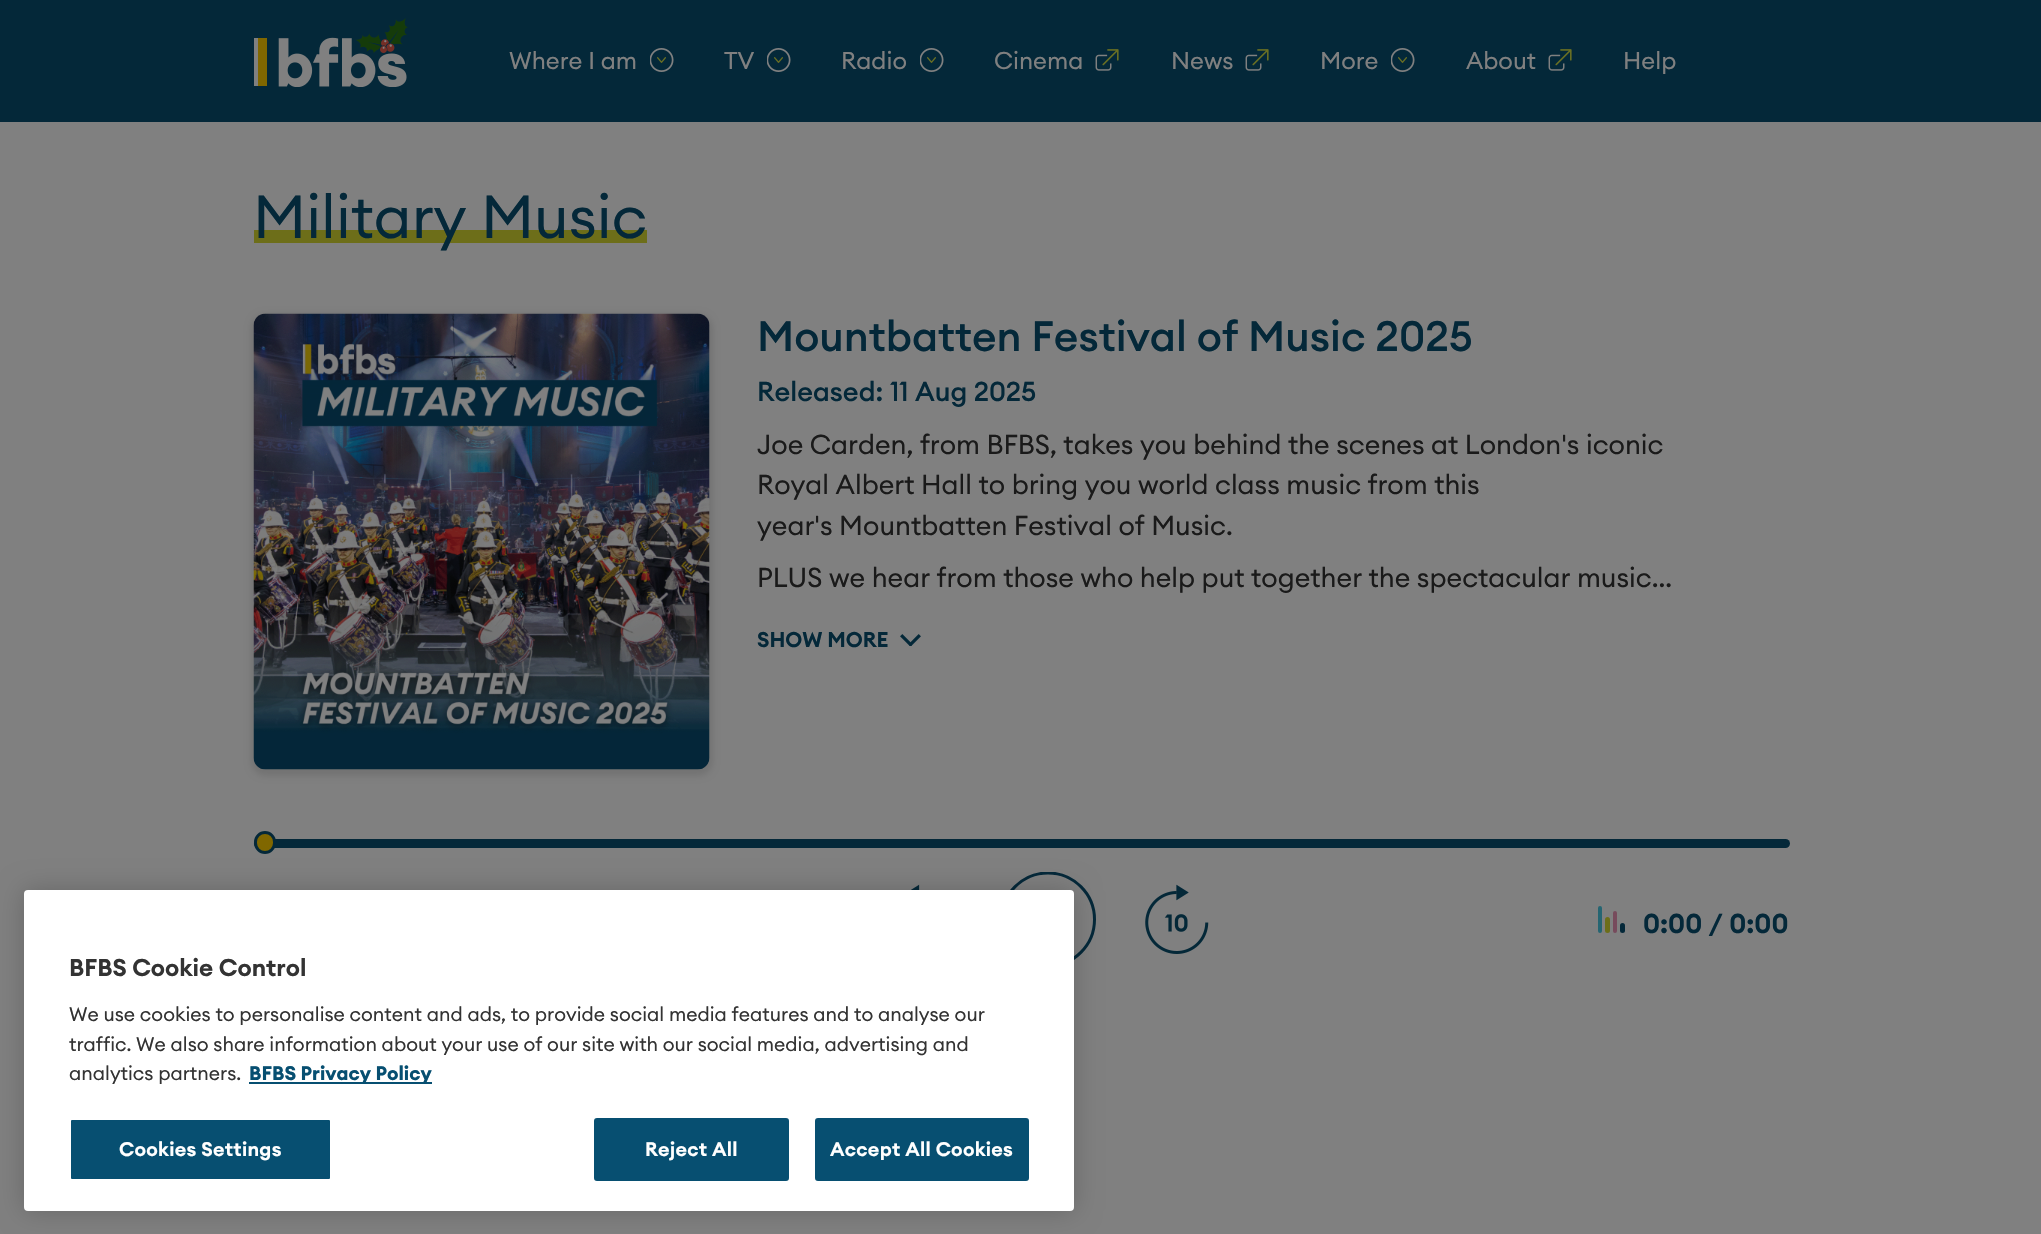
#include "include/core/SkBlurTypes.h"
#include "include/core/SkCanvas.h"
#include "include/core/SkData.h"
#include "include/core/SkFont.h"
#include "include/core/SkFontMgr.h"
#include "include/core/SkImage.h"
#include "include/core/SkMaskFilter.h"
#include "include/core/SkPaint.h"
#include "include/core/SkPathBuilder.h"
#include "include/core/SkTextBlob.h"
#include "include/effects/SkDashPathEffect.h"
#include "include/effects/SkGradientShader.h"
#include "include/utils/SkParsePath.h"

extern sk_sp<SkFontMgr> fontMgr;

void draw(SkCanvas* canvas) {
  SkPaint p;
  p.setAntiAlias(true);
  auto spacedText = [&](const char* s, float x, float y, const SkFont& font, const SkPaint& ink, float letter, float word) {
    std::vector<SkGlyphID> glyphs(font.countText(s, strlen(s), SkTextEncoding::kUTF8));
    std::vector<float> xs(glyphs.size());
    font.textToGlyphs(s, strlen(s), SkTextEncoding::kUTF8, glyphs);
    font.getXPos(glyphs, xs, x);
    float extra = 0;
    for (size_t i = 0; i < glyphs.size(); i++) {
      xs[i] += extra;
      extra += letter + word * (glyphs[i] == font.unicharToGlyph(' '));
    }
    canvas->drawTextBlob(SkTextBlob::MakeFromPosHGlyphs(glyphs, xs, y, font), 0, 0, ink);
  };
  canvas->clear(SkColorSetRGB(128, 128, 128));
  p.setColor(SkColorSetRGB(4, 40, 57));
  canvas->drawRect(SkRect::MakeLTRB(0, 0, 2041, 122), p);
  canvas->drawImageRect(SkImages::DeferredFromEncodedData(SkData::MakeFromFileName("images/1.png")), SkRect::MakeLTRB(254, 18, 408, 87), SkSamplingOptions());
  canvas->drawImageRect(SkImages::DeferredFromEncodedData(SkData::MakeFromFileName("images/2.png")), SkRect::MakeLTRB(650, 48, 674, 72), SkSamplingOptions());
  canvas->drawImageRect(SkImages::DeferredFromEncodedData(SkData::MakeFromFileName("images/2.png")), SkRect::MakeLTRB(767, 48, 791, 72), SkSamplingOptions());
  canvas->drawImageRect(SkImages::DeferredFromEncodedData(SkData::MakeFromFileName("images/2.png")), SkRect::MakeLTRB(920, 48, 944, 72), SkSamplingOptions());
  canvas->drawImageRect(SkImages::DeferredFromEncodedData(SkData::MakeFromFileName("images/3.png")), SkRect::MakeLTRB(1095, 49, 1119, 71), SkSamplingOptions());
  canvas->drawImageRect(SkImages::DeferredFromEncodedData(SkData::MakeFromFileName("images/3.png")), SkRect::MakeLTRB(1245, 49, 1269, 71), SkSamplingOptions());
  canvas->drawImageRect(SkImages::DeferredFromEncodedData(SkData::MakeFromFileName("images/2.png")), SkRect::MakeLTRB(1391, 48, 1415, 72), SkSamplingOptions());
  canvas->drawImageRect(SkImages::DeferredFromEncodedData(SkData::MakeFromFileName("images/3.png")), SkRect::MakeLTRB(1548, 49, 1572, 71), SkSamplingOptions());
  p.setColor(SkColorSetRGB(109, 110, 25));
  canvas->drawRect(SkRect::MakeLTRB(254, 230, 647, 243), p);
  p.setColor(SkColorSetARGB(26, 0, 0, 0));
  p.setMaskFilter(SkMaskFilter::MakeBlur(kNormal_SkBlurStyle, 3));
  canvas->drawRoundRect(SkRect::MakeLTRB(251, 314, 713, 776), 15, 15, p);
  p.setMaskFilter(nullptr);
  canvas->drawImageRect(SkImages::DeferredFromEncodedData(SkData::MakeFromFileName("images/4.png")), SkRect::MakeLTRB(253, 313, 710, 770), SkSamplingOptions());
  canvas->drawImageRect(SkImages::DeferredFromEncodedData(SkData::MakeFromFileName("images/5.png")), SkRect::MakeLTRB(900, 634, 921, 647), SkSamplingOptions());
  p.setColor(SkColorSetRGB(4, 40, 57));
  canvas->drawRoundRect(SkRect::MakeLTRB(254, 839, 1790, 848), 4.5f, 4.5f, p);
  p.setColor(SkColorSetRGB(128, 103, 0));
  canvas->drawRoundRect(SkRect::MakeLTRB(255.5f, 832.5f, 274.5f, 852.5f), 9.5f, 9.5f, p);
  p.setStyle(SkPaint::kStroke_Style);
  p.setStrokeWidth(3);
  p.setColor(SkColorSetRGB(4, 40, 57));
  canvas->drawRoundRect(SkRect::MakeLTRB(255.5f, 832.5f, 274.5f, 852.5f), 9.5f, 9.5f, p);
  canvas->drawImageRect(SkImages::DeferredFromEncodedData(SkData::MakeFromFileName("images/6.png")), SkRect::MakeLTRB(911, 884, 920, 890), SkSamplingOptions());
  canvas->save();
  canvas->clipRect(SkRect::MakeLTRB(999, 872, 1097, 968));
  canvas->drawCircle(1048, 919.5f, 46.5f, p);
  canvas->restore();
  canvas->drawImageRect(SkImages::DeferredFromEncodedData(SkData::MakeFromFileName("images/7.png")), SkRect::MakeLTRB(1145, 884, 1209, 954), SkSamplingOptions());
  p.setStyle(SkPaint::kFill_Style);
  p.setColor(SkColorSetRGB(37, 101, 114));
  canvas->drawRoundRect(SkRect::MakeLTRB(1598, 906, 1602, 933), 2, 2, p);
  p.setColor(SkColorSetRGB(109, 110, 25));
  canvas->drawRoundRect(SkRect::MakeLTRB(1605, 917, 1610, 933), 2.5f, 2.5f, p);
  p.setColor(SkColorSetRGB(119, 75, 92));
  canvas->drawRoundRect(SkRect::MakeLTRB(1613, 911, 1617, 933), 2, 2, p);
  p.setColor(SkColorSetRGB(4, 40, 57));
  canvas->drawRoundRect(SkRect::MakeLTRB(1620, 923, 1625, 933), 2.5f, 2.5f, p);
  p.setColor(SkColorSetARGB(51, 0, 0, 0));
  p.setMaskFilter(SkMaskFilter::MakeBlur(kNormal_SkBlurStyle, 13.5f));
  canvas->drawRoundRect(SkRect::MakeLTRB(24, 890, 1074, 1211), 4, 4, p);
  p.setMaskFilter(nullptr);
  p.setColor(SK_ColorWHITE);
  canvas->drawRoundRect(SkRect::MakeLTRB(24, 890, 1074, 1211), 4, 4, p);
  p.setColor(SkColorSetRGB(7, 79, 113));
  canvas->drawRect(SkRect::MakeLTRB(249, 1082, 432, 1084), p);
  canvas->drawRoundRect(SkRect::MakeLTRB(70, 1119, 331, 1180), 2, 2, p);
  p.setStyle(SkPaint::kStroke_Style);
  p.setStrokeWidth(2);
  p.setColor(SK_ColorWHITE);
  canvas->drawRoundRect(SkRect::MakeLTRB(70, 1119, 331, 1180), 2, 2, p);
  p.setStyle(SkPaint::kFill_Style);
  p.setColor(SkColorSetRGB(7, 79, 113));
  canvas->drawRoundRect(SkRect::MakeLTRB(595, 1119, 788, 1180), 2, 2, p);
  p.setStyle(SkPaint::kStroke_Style);
  canvas->drawRoundRect(SkRect::MakeLTRB(595, 1119, 788, 1180), 2, 2, p);
  p.setStyle(SkPaint::kFill_Style);
  canvas->drawRoundRect(SkRect::MakeLTRB(816, 1119, 1028, 1180), 2, 2, p);
  p.setStyle(SkPaint::kStroke_Style);
  canvas->drawRoundRect(SkRect::MakeLTRB(816, 1119, 1028, 1180), 2, 2, p);
  SkFont font1(fontMgr->matchFamilyStyle("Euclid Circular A", SkFontStyle::Normal()), 24);
  font1.setSubpixel(true);
  p.setStyle(SkPaint::kFill_Style);
  p.setColor(SkColorSetRGB(128, 128, 128));
  canvas->drawString("Where I am", 509, 69, font1, p);
  canvas->drawString("TV", 724, 69, font1, p);
  canvas->drawString("Radio", 841, 69, font1, p);
  canvas->drawString("Cinema", 994, 69, font1, p);
  canvas->drawString("News", 1171, 69, font1, p);
  canvas->drawString("More", 1320, 69, font1, p);
  canvas->drawString("About", 1466, 69, font1, p);
  canvas->drawString("Help", 1623, 69, font1, p);
  SkFont font2(fontMgr->matchFamilyStyle("Euclid Circular A", SkFontStyle::Normal()), 60);
  font2.setSubpixel(true);
  p.setColor(SkColorSetRGB(4, 40, 57));
  canvas->drawString("Military Music", 253, 238, font2, p);
  SkFont font3(fontMgr->matchFamilyStyle("Euclid Circular A", SkFontStyle(500, SkFontStyle::kNormal_Width, SkFontStyle::kUpright_Slant)), 42);
  font3.setSubpixel(true);
  canvas->drawString("Mountbatten Festival of Music 2025", 757, 351, font3, p);
  SkFont font4(fontMgr->matchFamilyStyle("Euclid Circular A", SkFontStyle(500, SkFontStyle::kNormal_Width, SkFontStyle::kUpright_Slant)), 27);
  font4.setSubpixel(true);
  canvas->drawString("Released:", 757, 401, font4, p);
  canvas->drawString("11 Aug 2025", 890, 401, font4, p);
  SkFont font5(fontMgr->matchFamilyStyle("Euclid Circular A", SkFontStyle::Normal()), 27);
  font5.setSubpixel(true);
  p.setColor(SkColorSetRGB(26, 26, 26));
  canvas->drawString("Joe Carden, from BFBS, takes you behind the scenes at London's iconic", 757, 454, font5, p);
  canvas->drawString("Royal Albert Hall to bring you world class music from this", 757, 494, font5, p);
  canvas->drawString("year's Mountbatten Festival of Music.", 757, 535, font5, p);
  canvas->drawString("PLUS we hear from those who help put together the spectacular music...", 757, 587, font5, p);
  SkFont font6(fontMgr->matchFamilyStyle("Euclid Circular A", SkFontStyle(600, SkFontStyle::kNormal_Width, SkFontStyle::kUpright_Slant)), 21);
  font6.setSubpixel(true);
  p.setColor(SkColorSetRGB(4, 40, 57));
  canvas->drawString("SHOW MORE", 757, 647, font6, p);
  SkFont font7(fontMgr->matchFamilyStyle("Euclid Circular A", SkFontStyle(600, SkFontStyle::kNormal_Width, SkFontStyle::kUpright_Slant)), 27);
  font7.setSubpixel(true);
  canvas->drawString("0:00 / 0:00", 1643, 933, font7, p);
  SkFont font8(fontMgr->matchFamilyStyle("Euclid Circular A", SkFontStyle(600, SkFontStyle::kNormal_Width, SkFontStyle::kUpright_Slant)), 24);
  font8.setSubpixel(true);
  p.setColor(SkColorSetRGB(51, 51, 51));
  canvas->drawString("BFBS Cookie Control", 69, 976, font8, p);
  SkFont font9(fontMgr->matchFamilyStyle("Euclid Circular A", SkFontStyle::Normal()), 19.5f);
  font9.setSubpixel(true);
  canvas->drawString("We use cookies to personalise content and ads, to provide social media features and to analyse our", 69, 1021, font9, p);
  canvas->drawString("traffic. We also share information about your use of our site with our social media, advertising and", 69, 1051, font9, p);
  canvas->drawString("analytics partners.", 69, 1080, font9, p);
  SkFont font10(fontMgr->matchFamilyStyle("Euclid Circular A", SkFontStyle::Bold()), 19.5f);
  font10.setSubpixel(true);
  p.setColor(SkColorSetRGB(7, 79, 113));
  canvas->drawString("BFBS Privacy Policy", 249, 1080, font10, p);
  SkFont font11(fontMgr->matchFamilyStyle("Euclid Circular A", SkFontStyle(600, SkFontStyle::kNormal_Width, SkFontStyle::kUpright_Slant)), 19.5f);
  font11.setSubpixel(true);
  p.setColor(SK_ColorWHITE);
  spacedText("Cookies Settings", 119, 1156, font11, p, 0.25f, 0);
  spacedText("Reject All", 645, 1156, font11, p, 0.25f, 0);
  spacedText("Accept All Cookies", 830, 1156, font11, p, 0.25f, 0);
}
